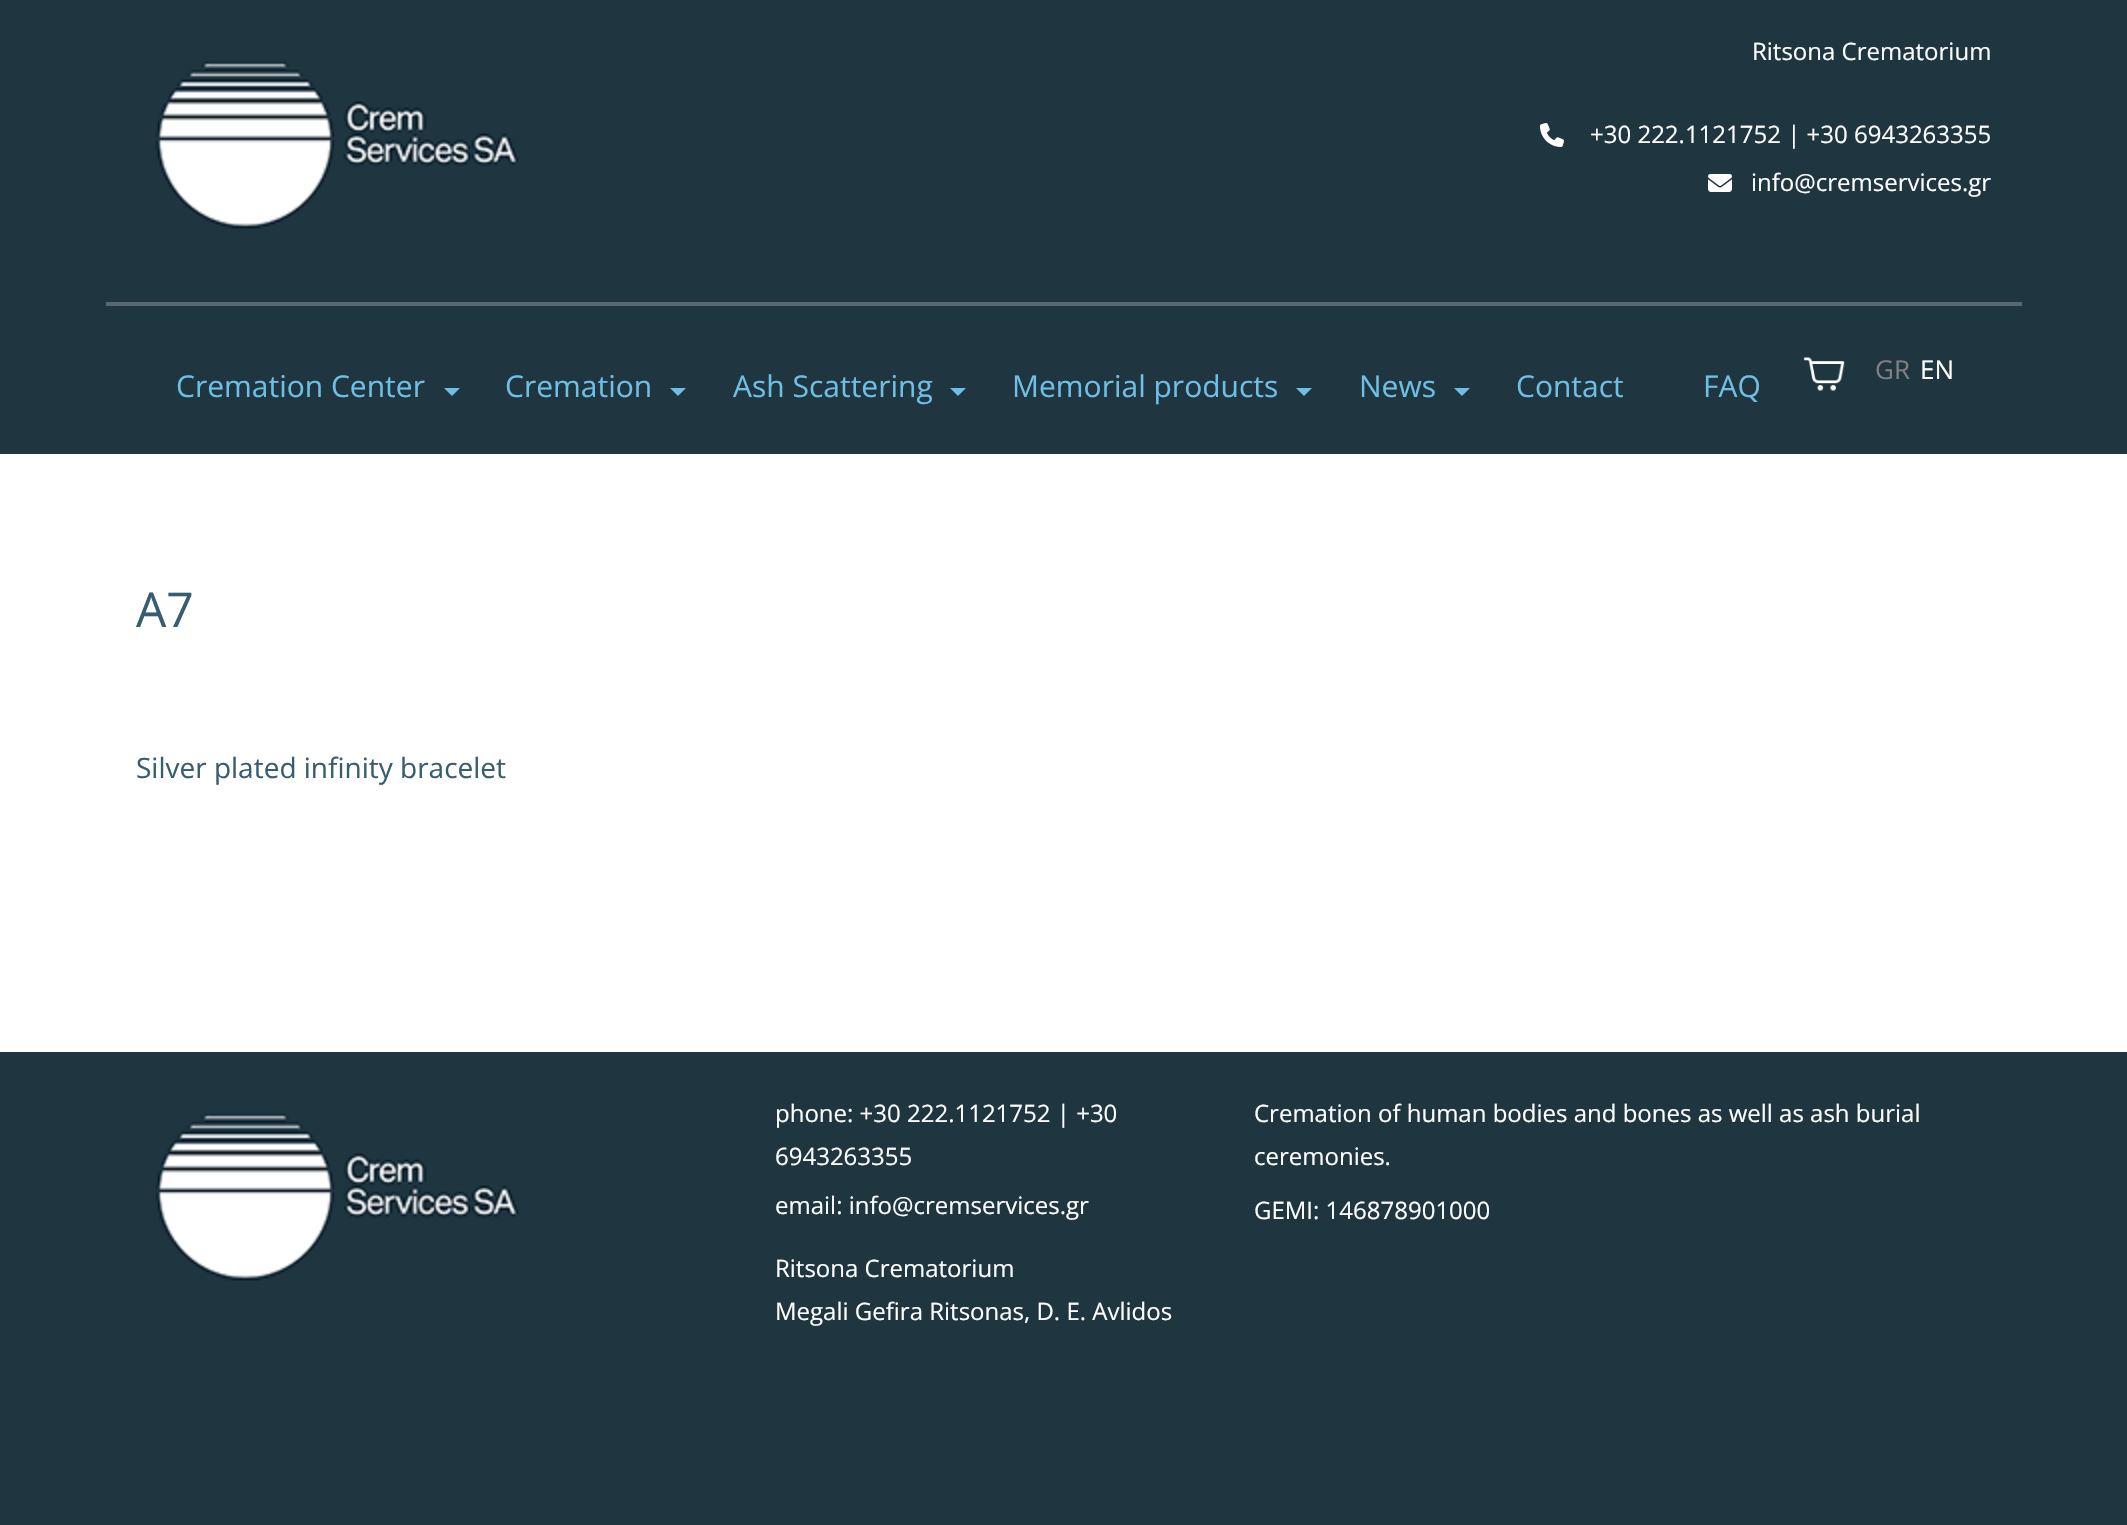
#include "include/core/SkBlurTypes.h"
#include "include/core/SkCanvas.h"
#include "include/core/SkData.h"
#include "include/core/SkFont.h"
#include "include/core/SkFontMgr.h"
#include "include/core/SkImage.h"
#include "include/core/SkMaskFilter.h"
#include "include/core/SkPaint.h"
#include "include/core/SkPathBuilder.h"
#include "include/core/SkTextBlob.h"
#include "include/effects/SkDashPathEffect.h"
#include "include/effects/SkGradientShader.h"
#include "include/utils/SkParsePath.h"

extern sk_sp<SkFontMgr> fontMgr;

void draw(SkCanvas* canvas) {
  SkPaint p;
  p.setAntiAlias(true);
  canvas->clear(SK_ColorWHITE);
  p.setColor(SkColorSetRGB(31, 53, 64));
  canvas->drawRect(SkRect::MakeLTRB(0, 0, 2127, 304), p);
  canvas->drawImageRect(SkImages::DeferredFromEncodedData(SkData::MakeFromFileName("images/1.png")), SkRect::MakeLTRB(155, 61, 519, 229), SkSamplingOptions());
  canvas->drawImageRect(SkImages::DeferredFromEncodedData(SkData::MakeFromFileName("images/2.png")), SkRect::MakeLTRB(1540, 123, 1564, 147), SkSamplingOptions());
  canvas->drawImageRect(SkImages::DeferredFromEncodedData(SkData::MakeFromFileName("images/3.png")), SkRect::MakeLTRB(1708, 174, 1732, 192), SkSamplingOptions());
  canvas->drawRect(SkRect::MakeLTRB(0, 304, 2127, 454), p);
  p.setColor(SkColorSetRGB(87, 104, 112));
  canvas->drawRect(SkRect::MakeLTRB(106, 302, 2022, 306), p);
  canvas->drawImageRect(SkImages::DeferredFromEncodedData(SkData::MakeFromFileName("images/4.png")), SkRect::MakeLTRB(1803, 357, 1845, 391), SkSamplingOptions());
  p.setColor(SkColorSetRGB(111, 191, 228));
  canvas->drawPath(SkPathBuilder().moveTo(444, 388).lineTo(460, 388).lineTo(452, 396).close().detach(), p);
  canvas->drawPath(SkPathBuilder().moveTo(670, 388).lineTo(686, 388).lineTo(678, 396).close().detach(), p);
  canvas->drawPath(SkPathBuilder().moveTo(950, 388).lineTo(966, 388).lineTo(958, 396).close().detach(), p);
  canvas->drawPath(SkPathBuilder().moveTo(1296, 388).lineTo(1312, 388).lineTo(1304, 396).close().detach(), p);
  canvas->drawPath(SkPathBuilder().moveTo(1454, 388).lineTo(1470, 388).lineTo(1462, 396).close().detach(), p);
  p.setColor(SkColorSetRGB(31, 53, 64));
  canvas->drawRect(SkRect::MakeLTRB(0, 1052, 2127, 1525), p);
  canvas->drawImageRect(SkImages::DeferredFromEncodedData(SkData::MakeFromFileName("images/1.png")), SkRect::MakeLTRB(155, 1113, 519, 1281), SkSamplingOptions());
  SkFont font1(fontMgr->matchFamilyStyle("Open Sans", SkFontStyle::Normal()), 24);
  font1.setSubpixel(true);
  p.setColor(SK_ColorWHITE);
  canvas->drawString("Ritsona Crematorium", 1752, 60, font1, p);
  canvas->drawString("+30 222.1121752 | +30 6943263355", 1590, 143, font1, p);
  canvas->drawString("info@cremservices.gr", 1751, 191, font1, p);
  SkFont font2(fontMgr->matchFamilyStyle("Open Sans", SkFontStyle::Normal()), 26);
  font2.setSubpixel(true);
  p.setColor(SkColorSetRGB(128, 128, 128));
  canvas->drawString("GR", 1875, 379, font2, p);
  p.setColor(SK_ColorWHITE);
  canvas->drawString("EN", 1920, 379, font2, p);
  SkFont font3(fontMgr->matchFamilyStyle("Open Sans", SkFontStyle::Normal()), 30);
  font3.setSubpixel(true);
  p.setColor(SkColorSetRGB(111, 191, 228));
  canvas->drawString("Cremation Center", 176, 397, font3, p);
  canvas->drawString("Cremation", 505, 397, font3, p);
  canvas->drawString("Ash Scattering", 733, 397, font3, p);
  canvas->drawString("Memorial products", 1012, 397, font3, p);
  canvas->drawString("News", 1359, 397, font3, p);
  canvas->drawString("Contact", 1516, 397, font3, p);
  canvas->drawString("FAQ", 1703, 397, font3, p);
  SkFont font4(fontMgr->matchFamilyStyle("Open Sans", SkFontStyle::Normal()), 48);
  font4.setSubpixel(true);
  p.setColor(SkColorSetRGB(55, 93, 112));
  canvas->drawString("Α7", 136, 627, font4, p);
  SkFont font5(fontMgr->matchFamilyStyle("Open Sans", SkFontStyle::Normal()), 28);
  font5.setSubpixel(true);
  canvas->drawString("Silver plated infinity bracelet", 136, 778, font5, p);
  p.setColor(SK_ColorWHITE);
  canvas->drawString("phone: +30 222.1121752 | +30", 775, 1122, font1, p);
  canvas->drawString("6943263355", 775, 1165, font1, p);
  canvas->drawString("email: info@cremservices.gr", 775, 1214, font1, p);
  canvas->drawString("Ritsona Crematorium", 775, 1277, font1, p);
  canvas->drawString("Megali Gefira Ritsonas, D. E. Avlidos", 775, 1320, font1, p);
  canvas->drawString("Cremation of human bodies and bones as well as ash burial", 1254, 1122, font1, p);
  canvas->drawString("ceremonies.", 1254, 1165, font1, p);
  canvas->drawString("GEMI: 146878901000", 1254, 1219, font1, p);
}
